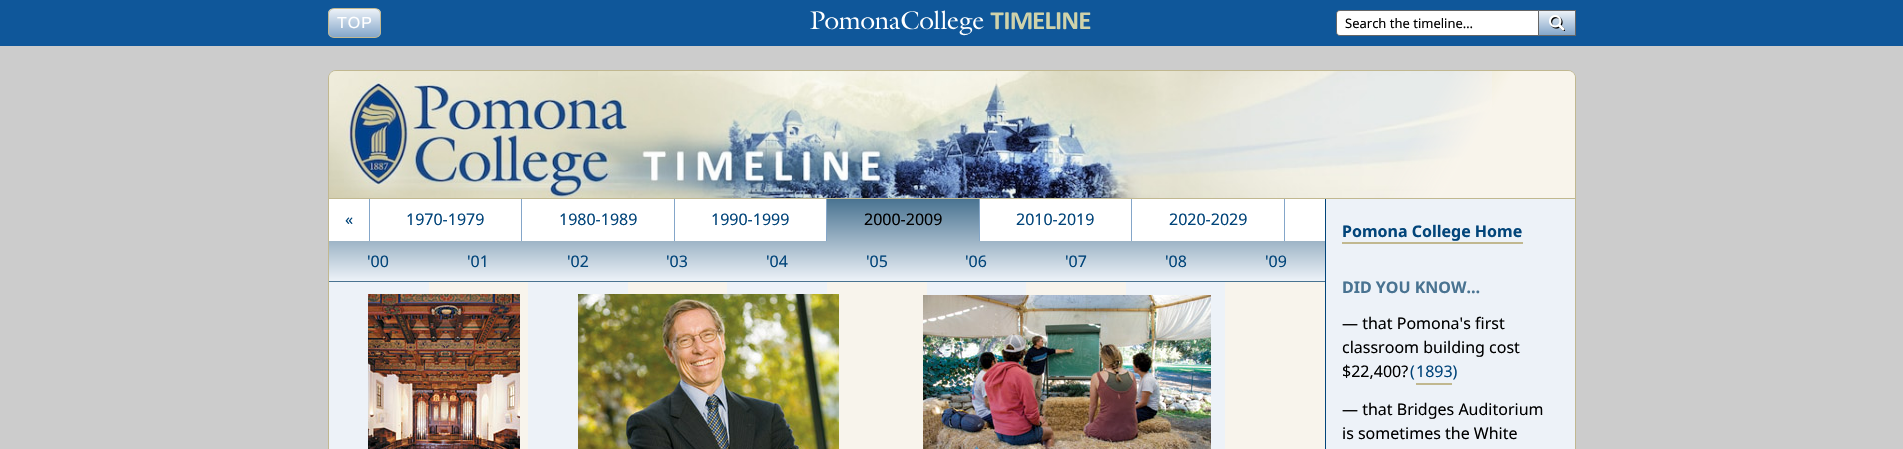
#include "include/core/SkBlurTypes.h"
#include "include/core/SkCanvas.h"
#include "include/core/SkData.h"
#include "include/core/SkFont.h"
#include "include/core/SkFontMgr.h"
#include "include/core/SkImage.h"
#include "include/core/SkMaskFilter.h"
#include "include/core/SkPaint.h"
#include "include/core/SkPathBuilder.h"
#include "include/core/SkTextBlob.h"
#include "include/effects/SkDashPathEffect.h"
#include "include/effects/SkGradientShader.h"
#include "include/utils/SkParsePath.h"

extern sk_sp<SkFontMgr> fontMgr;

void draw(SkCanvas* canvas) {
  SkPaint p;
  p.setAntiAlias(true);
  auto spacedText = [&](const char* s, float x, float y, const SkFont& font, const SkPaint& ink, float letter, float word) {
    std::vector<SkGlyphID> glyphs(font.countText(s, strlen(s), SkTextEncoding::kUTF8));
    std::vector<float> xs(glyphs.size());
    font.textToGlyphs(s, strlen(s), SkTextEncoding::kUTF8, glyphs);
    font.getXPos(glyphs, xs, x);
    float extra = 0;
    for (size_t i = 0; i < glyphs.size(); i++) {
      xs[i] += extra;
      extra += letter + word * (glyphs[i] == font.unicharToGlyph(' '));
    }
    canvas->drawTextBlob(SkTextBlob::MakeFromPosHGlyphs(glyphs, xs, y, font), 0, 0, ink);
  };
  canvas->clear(SkColorSetRGB(204, 204, 204));
  p.setColor(SkColorSetRGB(15, 87, 154));
  canvas->drawRect(SkRect::MakeLTRB(0, 0, 1903, 46), p);
  canvas->save();
  canvas->clipPath(SkPathBuilder().moveTo(334, 8).lineTo(375, 8).cubicTo(378.5f, 8, 381, 10.5f, 381, 14).lineTo(381, 32).cubicTo(381, 35.5f, 378.5f, 38, 375, 38).lineTo(334, 38).cubicTo(330.5f, 38, 328, 35.5f, 328, 32).lineTo(328, 14).cubicTo(328, 10.5f, 330.5f, 8, 334, 8).close().detach(), true);
  {
    const SkColor colors[] = {SkColorSetRGB(132, 166, 201), SkColorSetRGB(237, 242, 248)};
    const float stops[] = {0, 1};
    const SkPoint ends[] = {{355, 37}, {355, 9}};
    p.setShader(SkGradientShader::MakeLinear(ends, colors, stops, 2, SkTileMode::kClamp));
    p.setAlpha(255);
  }
  canvas->drawRect(SkRect::MakeLTRB(328, 9, 381, 37), p);
  canvas->restore();
  p.setStyle(SkPaint::kStroke_Style);
  p.setStrokeWidth(1);
  p.setShader(nullptr);
  p.setColor(SkColorSetRGB(193, 184, 144));
  canvas->drawRoundRect(SkRect::MakeLTRB(328.5f, 8.5f, 380.5f, 37.5f), 5.5f, 5.5f, p);
  canvas->drawImageRect(SkImages::DeferredFromEncodedData(SkData::MakeFromFileName("images/1.png")), SkRect::MakeLTRB(810, 10, 1091, 36), SkSamplingOptions());
  p.setStyle(SkPaint::kFill_Style);
  p.setColor(SK_ColorWHITE);
  canvas->drawPath(SkPathBuilder().moveTo(1340, 10.5f).lineTo(1538.5f, 10.5f).lineTo(1538.5f, 35.5f).lineTo(1340, 35.5f).cubicTo(1338, 35.5f, 1336.5f, 34, 1336.5f, 32).lineTo(1336.5f, 14).cubicTo(1336.5f, 12, 1338, 10.5f, 1340, 10.5f).close().detach(), p);
  p.setStyle(SkPaint::kStroke_Style);
  p.setColor(SkColorSetRGB(102, 102, 102));
  canvas->drawPath(SkPathBuilder().moveTo(1340, 10.5f).lineTo(1538.5f, 10.5f).lineTo(1538.5f, 35.5f).lineTo(1340, 35.5f).cubicTo(1338, 35.5f, 1336.5f, 34, 1336.5f, 32).lineTo(1336.5f, 14).cubicTo(1336.5f, 12, 1338, 10.5f, 1340, 10.5f).close().detach(), p);
  p.setStyle(SkPaint::kFill_Style);
  {
    const SkColor colors[] = {SkColorSetRGB(132, 166, 201), SkColorSetRGB(237, 242, 248)};
    const float stops[] = {0, 1};
    const SkPoint ends[] = {{1557, 35}, {1557, 11}};
    p.setShader(SkGradientShader::MakeLinear(ends, colors, stops, 2, SkTileMode::kClamp));
    p.setAlpha(255);
  }
  canvas->drawRect(SkRect::MakeLTRB(1539, 11, 1575, 35), p);
  p.setShader(nullptr);
  p.setColor(SkColorSetRGB(102, 102, 102));
  canvas->drawRect(SkRect::MakeLTRB(1539, 10, 1576, 11), p);
  canvas->drawRect(SkRect::MakeLTRB(1575, 10, 1576, 36), p);
  canvas->drawRect(SkRect::MakeLTRB(1539, 35, 1576, 36), p);
  canvas->drawImageRect(SkImages::DeferredFromEncodedData(SkData::MakeFromFileName("images/2.png")), SkRect::MakeLTRB(1549, 15, 1565, 31), SkSamplingOptions());
  p.setStyle(SkPaint::kStroke_Style);
  p.setColor(SkColorSetRGB(193, 184, 144));
  canvas->drawRoundRect(SkRect::MakeLTRB(328.5f, 70.5f, 1575.5f, 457.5f), 7.5f, 7.5f, p);
  p.setStyle(SkPaint::kFill_Style);
  p.setColor(SkColorSetRGB(231, 229, 200));
  canvas->drawPath(SkPathBuilder().moveTo(336, 71).lineTo(1568, 71).cubicTo(1572, 71, 1575, 74, 1575, 78).lineTo(1575, 198).lineTo(329, 198).lineTo(329, 78).cubicTo(329, 74, 332, 71, 336, 71).close().detach(), p);
  p.setColor(SkColorSetRGB(193, 184, 144));
  canvas->drawRect(SkRect::MakeLTRB(329, 198, 1575, 199), p);
  canvas->drawImageRect(SkImages::DeferredFromEncodedData(SkData::MakeFromFileName("images/3.png")), SkRect::MakeLTRB(329, 71, 1492, 198), SkSamplingOptions());
  {
    const SkColor colors[] = {SkColorSetRGB(248, 244, 235), SkColorSetRGB(248, 244, 235), SkColorSetARGB(0, 248, 244, 235)};
    const float stops[] = {0, 0.5f, 0.75f};
    const SkPoint ends[] = {{1578, 192}, {1380, 77}};
    p.setShader(SkGradientShader::MakeLinear(ends, colors, stops, 3, SkTileMode::kClamp));
    p.setAlpha(255);
  }
  canvas->drawPath(SkPathBuilder().moveTo(1383, 71).lineTo(1568, 71).cubicTo(1572, 71, 1575, 74, 1575, 78).lineTo(1575, 198).lineTo(1383, 198).close().detach(), p);
  {
    const SkColor colors[] = {SkColorSetRGB(73, 115, 145), SkColorSetRGB(237, 242, 248)};
    const float stops[] = {0, 1};
    const SkPoint ends[] = {{827, 199}, {827, 281}};
    p.setShader(SkGradientShader::MakeLinear(ends, colors, stops, 2, SkTileMode::kClamp));
    p.setAlpha(255);
  }
  canvas->drawRect(SkRect::MakeLTRB(329, 199, 1325, 281), p);
  p.setShader(nullptr);
  p.setColor(SkColorSetRGB(73, 115, 145));
  canvas->drawRect(SkRect::MakeLTRB(329, 281, 1325, 282), p);
  p.setColor(SK_ColorWHITE);
  canvas->drawRect(SkRect::MakeLTRB(329, 199, 369, 241), p);
  p.setColor(SkColorSetRGB(132, 166, 201));
  canvas->drawRect(SkRect::MakeLTRB(369, 199, 370, 241), p);
  p.setColor(SK_ColorWHITE);
  canvas->drawRect(SkRect::MakeLTRB(370, 199, 521, 241), p);
  p.setColor(SkColorSetRGB(132, 166, 201));
  canvas->drawRect(SkRect::MakeLTRB(521, 199, 522, 241), p);
  p.setColor(SK_ColorWHITE);
  canvas->drawRect(SkRect::MakeLTRB(522, 199, 674, 241), p);
  p.setColor(SkColorSetRGB(132, 166, 201));
  canvas->drawRect(SkRect::MakeLTRB(674, 199, 675, 241), p);
  p.setColor(SK_ColorWHITE);
  canvas->drawRect(SkRect::MakeLTRB(675, 199, 826, 241), p);
  p.setColor(SkColorSetRGB(132, 166, 201));
  canvas->drawRect(SkRect::MakeLTRB(826, 199, 827, 241), p);
  canvas->drawRect(SkRect::MakeLTRB(979, 199, 980, 241), p);
  p.setColor(SK_ColorWHITE);
  canvas->drawRect(SkRect::MakeLTRB(980, 199, 1131, 241), p);
  p.setColor(SkColorSetRGB(132, 166, 201));
  canvas->drawRect(SkRect::MakeLTRB(1131, 199, 1132, 241), p);
  p.setColor(SK_ColorWHITE);
  canvas->drawRect(SkRect::MakeLTRB(1132, 199, 1284, 241), p);
  canvas->drawRect(SkRect::MakeLTRB(1285, 199, 1325, 241), p);
  p.setColor(SkColorSetRGB(132, 166, 201));
  canvas->drawRect(SkRect::MakeLTRB(1284, 199, 1285, 241), p);
  {
    const SkColor colors[] = {SkColorSetRGB(237, 242, 248), SkColorSetRGB(237, 242, 248), SkColorSetRGB(248, 244, 236), SkColorSetRGB(248, 244, 236), SkColorSetRGB(237, 242, 248), SkColorSetRGB(237, 242, 248), SkColorSetRGB(248, 244, 236), SkColorSetRGB(248, 244, 236), SkColorSetRGB(237, 242, 248), SkColorSetRGB(237, 242, 248), SkColorSetRGB(248, 244, 236), SkColorSetRGB(248, 244, 236), SkColorSetRGB(237, 242, 248), SkColorSetRGB(237, 242, 248), SkColorSetRGB(248, 244, 236), SkColorSetRGB(248, 244, 236), SkColorSetRGB(237, 242, 248), SkColorSetRGB(237, 242, 248), SkColorSetRGB(248, 244, 236), SkColorSetRGB(248, 244, 236)};
    const float stops[] = {0, 0.1f, 0.1f, 0.2f, 0.2f, 0.3f, 0.3f, 0.4f, 0.4f, 0.5f, 0.5f, 0.6f, 0.6f, 0.7f, 0.7f, 0.8f, 0.8f, 0.9f, 0.9f, 1};
    const SkPoint ends[] = {{329, 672}, {1325, 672}};
    p.setShader(SkGradientShader::MakeLinear(ends, colors, stops, 20, SkTileMode::kClamp));
    p.setAlpha(255);
  }
  canvas->drawRect(SkRect::MakeLTRB(329, 282, 1325, 449), p);
  canvas->drawImageRect(SkImages::DeferredFromEncodedData(SkData::MakeFromFileName("images/4.png")), SkRect::MakeLTRB(368, 294, 520, 449), SkSamplingOptions());
  canvas->drawImageRect(SkImages::DeferredFromEncodedData(SkData::MakeFromFileName("images/5.png")), SkRect::MakeLTRB(578, 294, 839, 449), SkSamplingOptions());
  canvas->drawImageRect(SkImages::DeferredFromEncodedData(SkData::MakeFromFileName("images/6.png")), SkRect::MakeLTRB(923, 295, 1211, 449), SkSamplingOptions());
  canvas->drawImageRect(SkImages::DeferredFromEncodedData(SkData::MakeFromFileName("images/7.png")), SkRect::MakeLTRB(975, 446, 979, 449), SkSamplingOptions());
  p.setShader(nullptr);
  p.setColor(SkColorSetRGB(237, 242, 248));
  canvas->drawRect(SkRect::MakeLTRB(1326, 199, 1575, 449), p);
  p.setColor(SkColorSetRGB(2, 69, 122));
  canvas->drawRect(SkRect::MakeLTRB(1325, 199, 1326, 449), p);
  p.setColor(SkColorSetRGB(193, 184, 144));
  canvas->drawRect(SkRect::MakeLTRB(1342, 242, 1523, 244), p);
  canvas->drawRect(SkRect::MakeLTRB(1416, 383, 1452, 385), p);
  SkFont font1(fontMgr->matchFamilyStyle("Liberation Sans", SkFontStyle::Normal()), 16);
  font1.setSubpixel(true);
  p.setColor(SK_ColorWHITE);
  spacedText("TOP", 337, 28, font1, p, 1, 0);
  SkFont font2(fontMgr->matchFamilyStyle("Noto Sans", SkFontStyle::Normal()), 13);
  font2.setSubpixel(true);
  p.setColor(SK_ColorBLACK);
  canvas->drawString("Search the timeline…", 1345, 28, font2, p);
  SkFont font3(fontMgr->matchFamilyStyle("Noto Sans", SkFontStyle::Normal()), 16);
  font3.setSubpixel(true);
  p.setColor(SkColorSetRGB(2, 69, 122));
  canvas->drawString("«", 345, 225, font3, p);
  canvas->drawString("1970-1979", 406, 225, font3, p);
  canvas->drawString("1980-1989", 559, 225, font3, p);
  canvas->drawString("1990-1999", 711, 225, font3, p);
  p.setColor(SK_ColorBLACK);
  canvas->drawString("2000-2009", 864, 225, font3, p);
  p.setColor(SkColorSetRGB(2, 69, 122));
  canvas->drawString("2010-2019", 1016, 225, font3, p);
  canvas->drawString("2020-2029", 1169, 225, font3, p);
  canvas->drawString("'00", 367, 267, font3, p);
  canvas->drawString("'01", 467, 267, font3, p);
  canvas->drawString("'02", 567, 267, font3, p);
  canvas->drawString("'03", 666, 267, font3, p);
  canvas->drawString("'04", 766, 267, font3, p);
  canvas->drawString("'05", 866, 267, font3, p);
  canvas->drawString("'06", 965, 267, font3, p);
  canvas->drawString("'07", 1065, 267, font3, p);
  canvas->drawString("'08", 1165, 267, font3, p);
  canvas->drawString("'09", 1265, 267, font3, p);
  SkFont font4(fontMgr->matchFamilyStyle("Noto Sans", SkFontStyle::Bold()), 16);
  font4.setSubpixel(true);
  canvas->drawString("Pomona College Home", 1342, 237, font4, p);
  p.setColor(SkColorSetRGB(73, 115, 145));
  canvas->drawString("DID YOU KNOW…", 1342, 293, font4, p);
  p.setColor(SK_ColorBLACK);
  canvas->drawString("— that Pomona's first", 1342, 329, font3, p);
  canvas->drawString("classroom building cost", 1342, 353, font3, p);
  canvas->drawString("$22,400?", 1342, 377, font3, p);
  p.setColor(SkColorSetRGB(2, 69, 122));
  canvas->drawString("(", 1410, 377, font3, p);
  canvas->drawString("1893)", 1416, 377, font3, p);
  p.setColor(SK_ColorBLACK);
  canvas->drawString("— that Bridges Auditorium", 1342, 415, font3, p);
  canvas->drawString("is sometimes the White", 1342, 439, font3, p);
}
